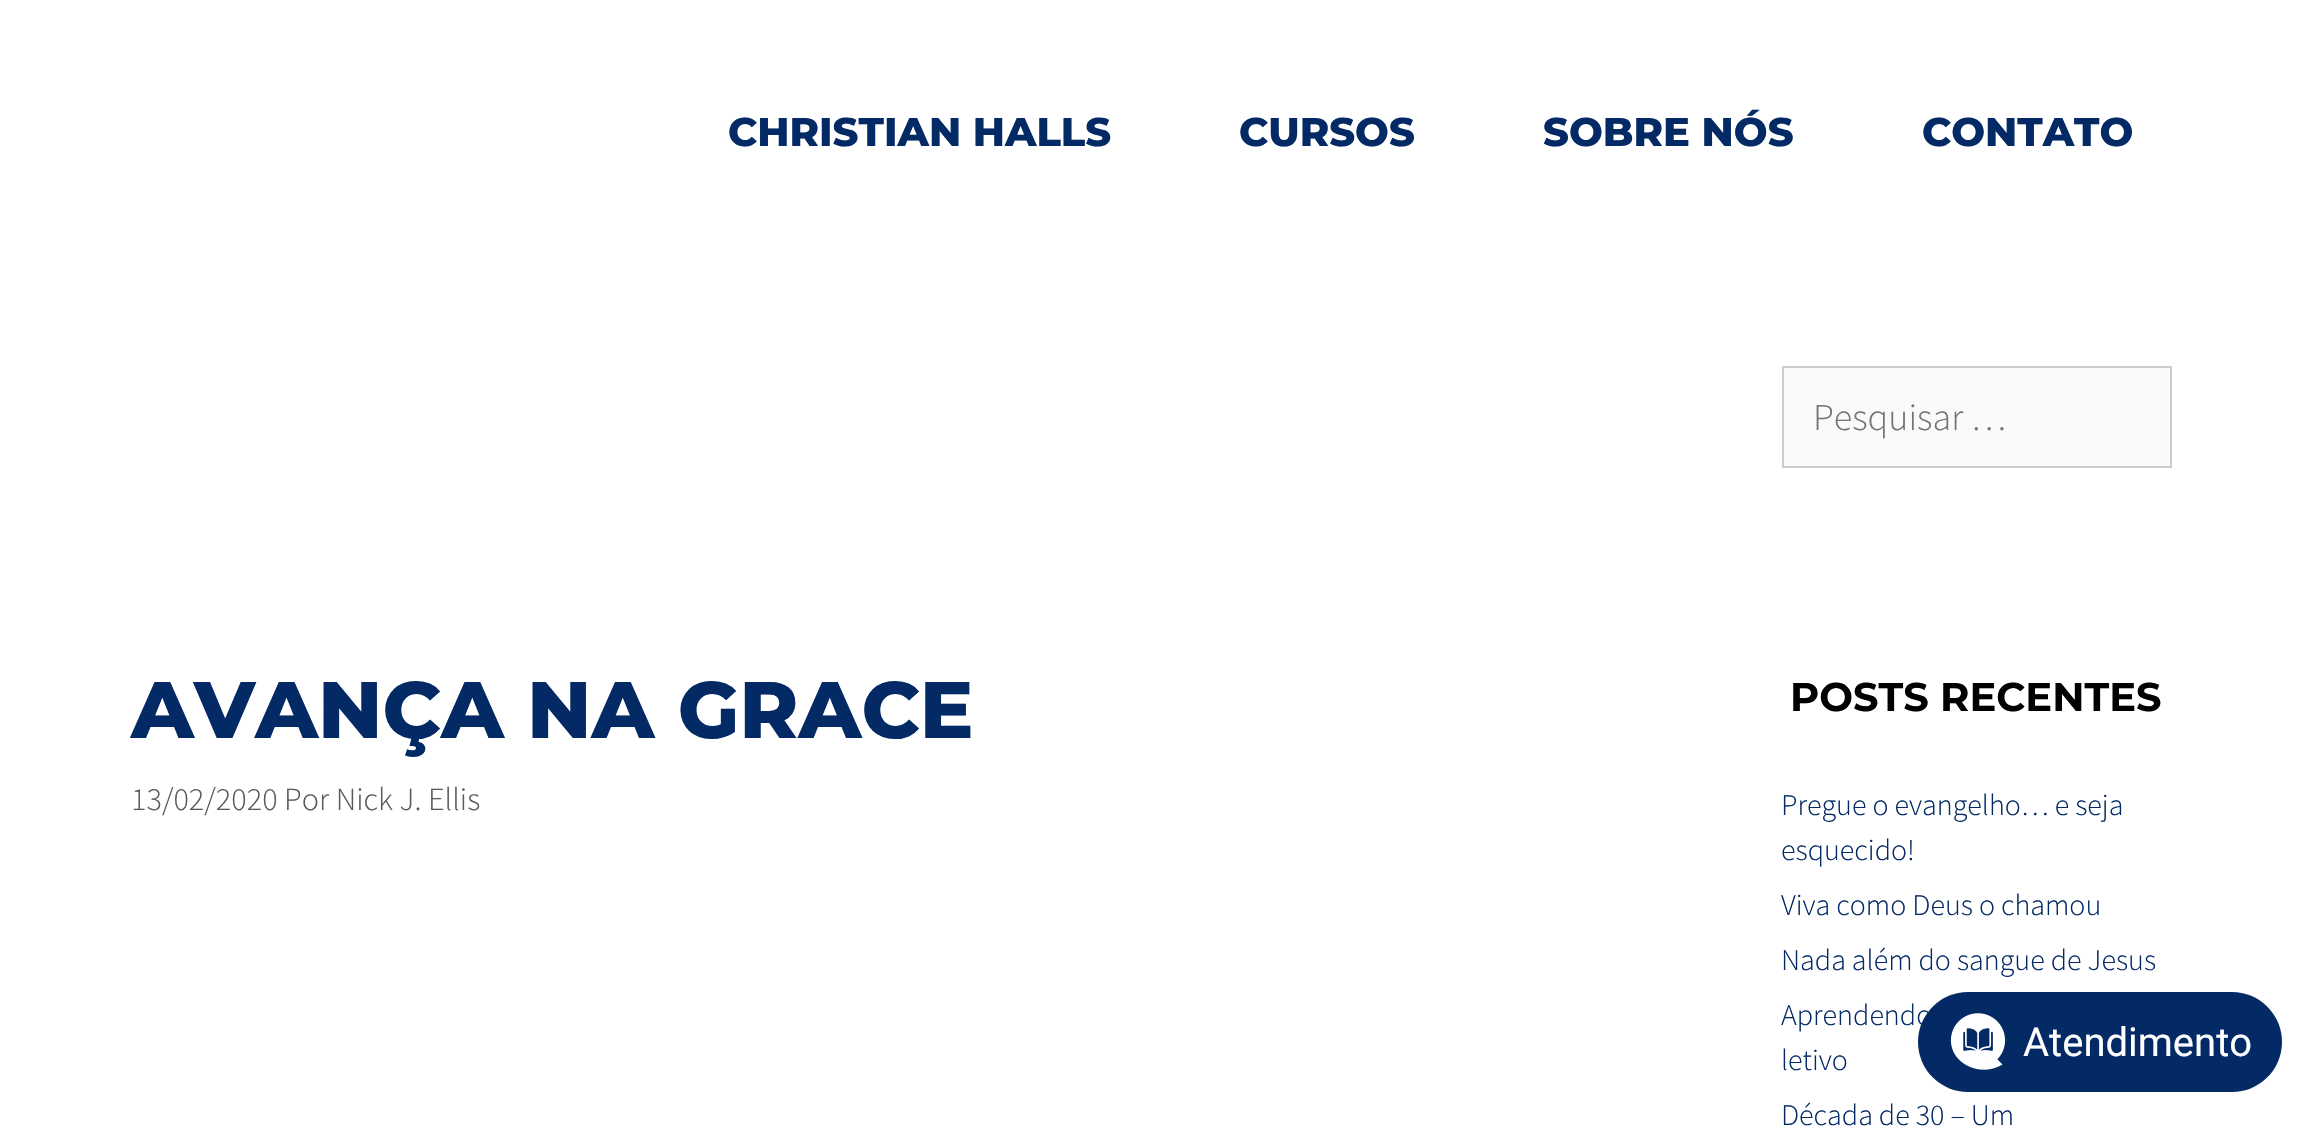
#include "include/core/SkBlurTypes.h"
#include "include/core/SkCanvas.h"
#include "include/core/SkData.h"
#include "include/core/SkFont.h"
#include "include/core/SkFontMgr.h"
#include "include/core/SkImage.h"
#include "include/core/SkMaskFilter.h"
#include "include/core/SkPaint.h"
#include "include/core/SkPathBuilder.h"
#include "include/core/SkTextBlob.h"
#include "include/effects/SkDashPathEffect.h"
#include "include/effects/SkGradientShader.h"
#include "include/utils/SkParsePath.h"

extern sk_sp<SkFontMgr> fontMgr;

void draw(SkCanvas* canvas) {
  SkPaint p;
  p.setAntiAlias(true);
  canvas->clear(SK_ColorWHITE);
  p.setColor(SkColorSetRGB(250, 250, 250));
  canvas->drawRect(SkRect::MakeLTRB(1783, 367, 2171, 467), p);
  p.setStyle(SkPaint::kStroke_Style);
  p.setStrokeWidth(2);
  p.setColor(SkColorSetRGB(204, 204, 204));
  canvas->drawRect(SkRect::MakeLTRB(1783, 367, 2171, 467), p);
  p.setStyle(SkPaint::kFill_Style);
  p.setColor(SkColorSetRGB(4, 42, 102));
  canvas->drawRoundRect(SkRect::MakeLTRB(1918, 992, 2282, 1092), 50, 50, p);
  canvas->drawImageRect(SkImages::DeferredFromEncodedData(SkData::MakeFromFileName("images/1.png")), SkRect::MakeLTRB(1950, 1013, 2006, 1070), SkSamplingOptions());
  SkFont font1(fontMgr->matchFamilyStyle("Montserrat", SkFontStyle(800, SkFontStyle::kNormal_Width, SkFontStyle::kUpright_Slant)), 40);
  font1.setSubpixel(true);
  canvas->drawString("CHRISTIAN HALLS", 728, 146, font1, p);
  canvas->drawString("CURSOS", 1239, 146, font1, p);
  canvas->drawString("SOBRE NÓS", 1543, 146, font1, p);
  canvas->drawString("CONTATO", 1922, 146, font1, p);
  SkFont font2(fontMgr->matchFamilyStyle("Montserrat", SkFontStyle(800, SkFontStyle::kNormal_Width, SkFontStyle::kUpright_Slant)), 80);
  font2.setSubpixel(true);
  canvas->drawString("AVANÇA NA GRACE", 131, 738, font2, p);
  SkFont font3(fontMgr->matchFamilyStyle("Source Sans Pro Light", SkFontStyle(300, SkFontStyle::kNormal_Width, SkFontStyle::kUpright_Slant)), 32.25f);
  font3.setSubpixel(true);
  p.setColor(SkColorSetRGB(89, 89, 89));
  canvas->drawString("13/02/2020 Por Nick J. Ellis", 131, 810, font3, p);
  SkFont font4(fontMgr->matchFamilyStyle("Source Sans Pro Light", SkFontStyle(300, SkFontStyle::kNormal_Width, SkFontStyle::kUpright_Slant)), 38);
  font4.setSubpixel(true);
  p.setColor(SkColorSetRGB(117, 117, 117));
  canvas->drawString("Pesquisar …", 1813, 430, font4, p);
  SkFont font5(fontMgr->matchFamilyStyle("Montserrat", SkFontStyle::Bold()), 40);
  font5.setSubpixel(true);
  p.setColor(SK_ColorBLACK);
  canvas->drawString("POSTS RECENTES", 1790, 711, font5, p);
  SkFont font6(fontMgr->matchFamilyStyle("Source Sans Pro Light", SkFontStyle(300, SkFontStyle::kNormal_Width, SkFontStyle::kUpright_Slant)), 30);
  font6.setSubpixel(true);
  p.setColor(SkColorSetRGB(4, 42, 102));
  canvas->drawString("Pregue o evangelho… e seja", 1781, 815, font6, p);
  canvas->drawString("esquecido!", 1781, 860, font6, p);
  canvas->drawString("Viva como Deus o chamou", 1781, 915, font6, p);
  canvas->drawString("Nada além do sangue de Jesus", 1781, 970, font6, p);
  canvas->drawString("Aprendendo", 1781, 1025, font6, p);
  canvas->drawString("letivo", 1781, 1070, font6, p);
  canvas->drawString("Década de 30 – Um", 1781, 1125, font6, p);
  SkFont font7(fontMgr->matchFamilyStyle("Roboto", SkFontStyle::Normal()), 40);
  font7.setSubpixel(true);
  p.setColor(SK_ColorWHITE);
  canvas->drawString("Atendimento", 2023, 1056, font7, p);
}
